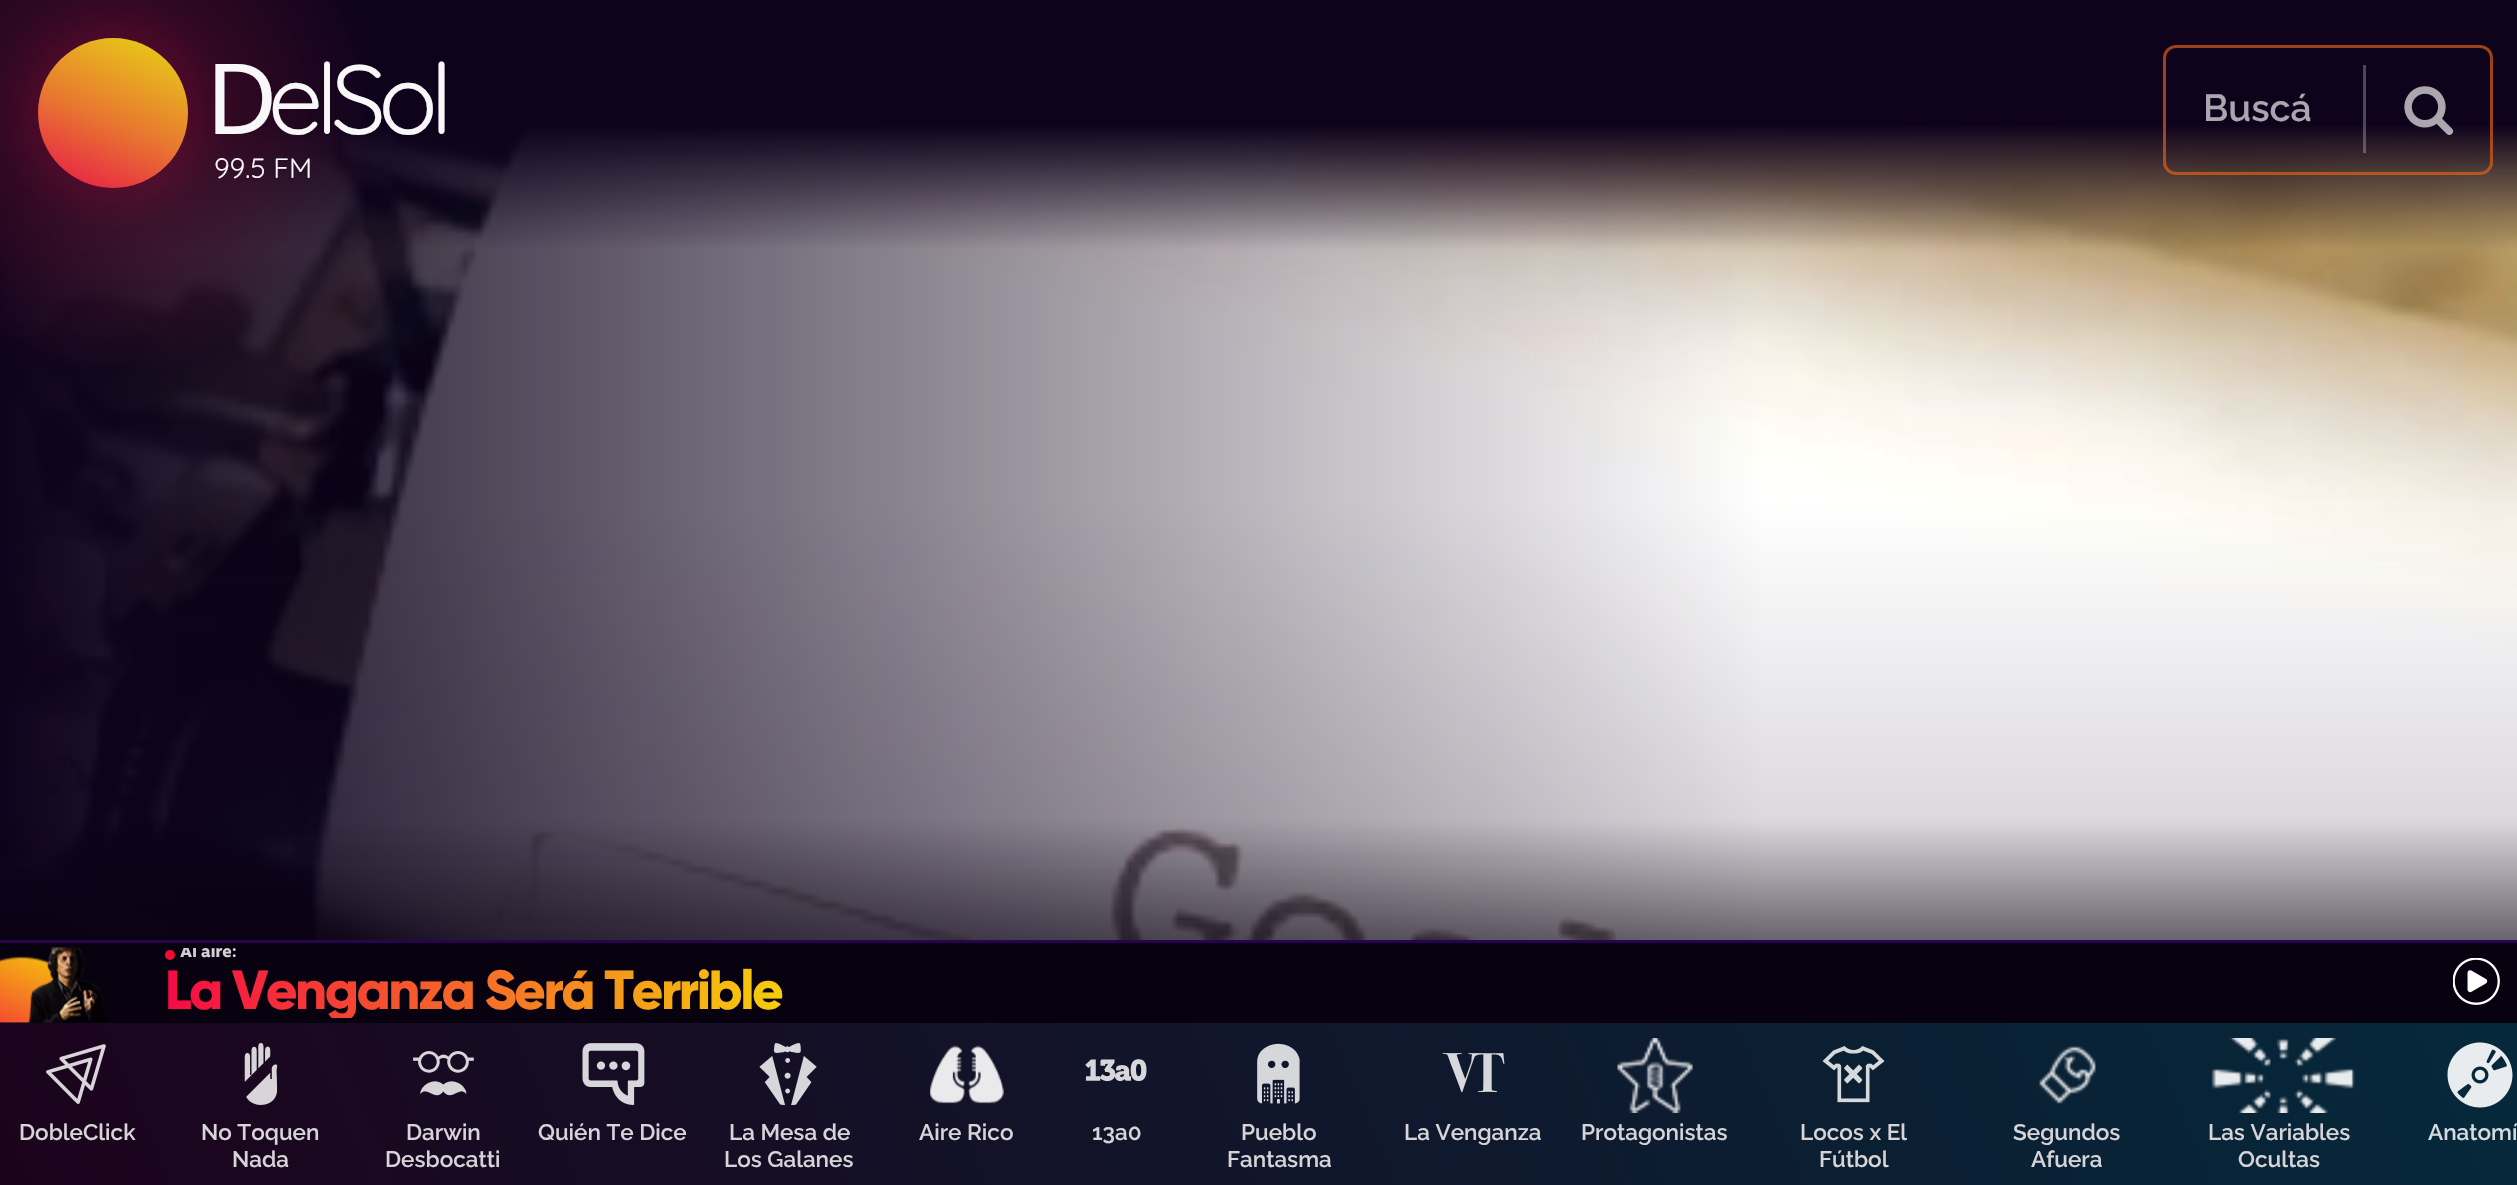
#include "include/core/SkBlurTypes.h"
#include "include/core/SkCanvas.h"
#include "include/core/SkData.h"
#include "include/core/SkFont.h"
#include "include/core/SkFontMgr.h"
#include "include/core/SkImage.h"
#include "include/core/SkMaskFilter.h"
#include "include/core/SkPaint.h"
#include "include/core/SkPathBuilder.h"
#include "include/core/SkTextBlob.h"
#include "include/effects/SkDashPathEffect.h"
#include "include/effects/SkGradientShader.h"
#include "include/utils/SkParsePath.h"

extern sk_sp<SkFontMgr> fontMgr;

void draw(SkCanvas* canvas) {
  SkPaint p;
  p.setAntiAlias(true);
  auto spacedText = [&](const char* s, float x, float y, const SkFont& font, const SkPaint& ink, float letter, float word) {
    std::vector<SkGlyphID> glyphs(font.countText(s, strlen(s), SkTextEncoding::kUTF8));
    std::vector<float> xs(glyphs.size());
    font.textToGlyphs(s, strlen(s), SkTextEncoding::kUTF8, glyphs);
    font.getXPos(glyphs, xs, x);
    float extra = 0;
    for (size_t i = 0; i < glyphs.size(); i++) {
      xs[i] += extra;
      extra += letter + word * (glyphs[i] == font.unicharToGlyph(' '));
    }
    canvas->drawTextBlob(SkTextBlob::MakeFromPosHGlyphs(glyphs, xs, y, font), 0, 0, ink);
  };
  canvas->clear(SK_ColorWHITE);
  p.setColor(SkColorSetRGB(15, 3, 28));
  canvas->drawRect(SkRect::MakeLTRB(0, 0, 2517, 125), p);
  canvas->drawImageRect(SkImages::DeferredFromEncodedData(SkData::MakeFromFileName("images/2.png")), SkRect::MakeLTRB(0, 125, 2517, 940), SkSamplingOptions());
  {
    const SkColor colors[] = {SkColorSetARGB(143, 232, 21, 74), SkColorSetARGB(79, 122, 17, 47), SkColorSetARGB(0, 122, 17, 47)};
    const float stops[] = {0, 0.45f, 1};
    p.setShader(SkGradientShader::MakeRadial({113, 113}, 263, colors, stops, 3, SkTileMode::kClamp));
    p.setAlpha(255);
  }
  canvas->drawRect(SkRect::MakeLTRB(0, 0, 366, 366), p);
  {
    const SkColor colors[] = {SkColorSetRGB(232, 21, 74), SkColorSetRGB(232, 118, 48), SkColorSetRGB(232, 214, 21)};
    const float stops[] = {0, 0.45f, 1};
    const SkPoint ends[] = {{74, 203}, {151, 22}};
    p.setShader(SkGradientShader::MakeLinear(ends, colors, stops, 3, SkTileMode::kClamp));
    p.setAlpha(255);
  }
  canvas->drawCircle(113, 113, 75, p);
  p.setStyle(SkPaint::kStroke_Style);
  p.setStrokeWidth(3);
  p.setShader(nullptr);
  p.setColor(SkColorSetARGB(166, 232, 98, 21));
  canvas->drawRoundRect(SkRect::MakeLTRB(2164.5f, 46.5f, 2491.5f, 173.5f), 11.5f, 11.5f, p);
  p.setStyle(SkPaint::kFill_Style);
  p.setColor(SkColorSetARGB(66, 255, 255, 255));
  canvas->drawRect(SkRect::MakeLTRB(2363, 65, 2366, 153), p);
  canvas->drawImageRect(SkImages::DeferredFromEncodedData(SkData::MakeFromFileName("images/1.png")), SkRect::MakeLTRB(2404, 86, 2454, 135), SkSamplingOptions());
  p.setColor(SkColorSetRGB(8, 1, 15));
  canvas->drawRect(SkRect::MakeLTRB(0, 943, 2517, 1023), p);
  p.setColor(SkColorSetRGB(40, 4, 79));
  canvas->drawRect(SkRect::MakeLTRB(0, 940, 2517, 943), p);
  canvas->drawImageRect(SkImages::DeferredFromEncodedData(SkData::MakeFromFileName("images/3.png")), SkRect::MakeLTRB(0, 947, 110, 1023), SkSamplingOptions());
  p.setColor(SkColorSetRGB(245, 10, 49));
  canvas->drawCircle(170, 955, 5, p);
  canvas->drawImageRect(SkImages::DeferredFromEncodedData(SkData::MakeFromFileName("images/4.png")), SkRect::MakeLTRB(2453, 958, 2500, 1005), SkSamplingOptions());
  {
    const SkColor colors[] = {SkColorSetRGB(28, 3, 28), SkColorSetRGB(5, 41, 59)};
    const float stops[] = {0, 1};
    const SkPoint ends[] = {{163, 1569}, {2355, 639}};
    p.setShader(SkGradientShader::MakeLinear(ends, colors, stops, 2, SkTileMode::kClamp));
    p.setAlpha(255);
  }
  canvas->drawRect(SkRect::MakeLTRB(0, 1023, 2517, 1185), p);
  canvas->drawImageRect(SkImages::DeferredFromEncodedData(SkData::MakeFromFileName("images/5.png")), SkRect::MakeLTRB(46, 1044, 106, 1104), SkSamplingOptions());
  canvas->drawImageRect(SkImages::DeferredFromEncodedData(SkData::MakeFromFileName("images/6.png")), SkRect::MakeLTRB(244, 1043, 278, 1105), SkSamplingOptions());
  canvas->drawImageRect(SkImages::DeferredFromEncodedData(SkData::MakeFromFileName("images/7.png")), SkRect::MakeLTRB(413, 1051, 474, 1096), SkSamplingOptions());
  canvas->drawImageRect(SkImages::DeferredFromEncodedData(SkData::MakeFromFileName("images/8.png")), SkRect::MakeLTRB(582, 1043, 645, 1105), SkSamplingOptions());
  canvas->drawImageRect(SkImages::DeferredFromEncodedData(SkData::MakeFromFileName("images/9.png")), SkRect::MakeLTRB(759, 1043, 817, 1105), SkSamplingOptions());
  canvas->drawImageRect(SkImages::DeferredFromEncodedData(SkData::MakeFromFileName("images/10.png")), SkRect::MakeLTRB(930, 1045, 1004, 1104), SkSamplingOptions());
  canvas->drawImageRect(SkImages::DeferredFromEncodedData(SkData::MakeFromFileName("images/11.png")), SkRect::MakeLTRB(1085, 1059, 1147, 1082), SkSamplingOptions());
  canvas->drawImageRect(SkImages::DeferredFromEncodedData(SkData::MakeFromFileName("images/12.png")), SkRect::MakeLTRB(1257, 1043, 1300, 1104), SkSamplingOptions());
  canvas->drawImageRect(SkImages::DeferredFromEncodedData(SkData::MakeFromFileName("images/13.png")), SkRect::MakeLTRB(1442, 1053, 1505, 1093), SkSamplingOptions());
  canvas->drawImageRect(SkImages::DeferredFromEncodedData(SkData::MakeFromFileName("images/14.png")), SkRect::MakeLTRB(1617, 1038, 1693, 1113), SkSamplingOptions());
  canvas->drawImageRect(SkImages::DeferredFromEncodedData(SkData::MakeFromFileName("images/15.png")), SkRect::MakeLTRB(1822, 1046, 1885, 1103), SkSamplingOptions());
  canvas->drawImageRect(SkImages::DeferredFromEncodedData(SkData::MakeFromFileName("images/16.png")), SkRect::MakeLTRB(2039, 1046, 2096, 1104), SkSamplingOptions());
  canvas->drawImageRect(SkImages::DeferredFromEncodedData(SkData::MakeFromFileName("images/17.png")), SkRect::MakeLTRB(2211, 1038, 2355, 1113), SkSamplingOptions());
  canvas->drawImageRect(SkImages::DeferredFromEncodedData(SkData::MakeFromFileName("images/18.png")), SkRect::MakeLTRB(2447, 1042, 2513, 1108), SkSamplingOptions());
  SkFont font1(fontMgr->matchFamilyStyle("Noto Sans", SkFontStyle::Normal()), 98);
  font1.setSubpixel(true);
  p.setShader(nullptr);
  p.setColor(SkColorSetRGB(249, 248, 248));
  spacedText("D", 206, 134, font1, p, -7.5f, 0);
  SkFont font2(fontMgr->matchFamilyStyle("Quicksand", SkFontStyle::Normal()), 98);
  font2.setSubpixel(true);
  spacedText("elSol", 268, 134, font2, p, -7.5f, 0);
  SkFont font3(fontMgr->matchFamilyStyle("Quicksand", SkFontStyle::Normal()), 28);
  font3.setSubpixel(true);
  canvas->drawString("99.5 FM", 214, 178, font3, p);
  SkFont font4(fontMgr->matchFamilyStyle("Raleway", SkFontStyle(600, SkFontStyle::kNormal_Width, SkFontStyle::kUpright_Slant)), 37.5f);
  font4.setSubpixel(true);
  p.setColor(SkColorSetRGB(170, 166, 175));
  canvas->drawString("Buscá", 2203, 121, font4, p);
  canvas->save();
  canvas->clipRect(SkRect::MakeLTRB(165, 948, 2435, 963));
  SkFont font5(fontMgr->matchFamilyStyle("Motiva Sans", SkFontStyle(800, SkFontStyle::kNormal_Width, SkFontStyle::kUpright_Slant)), 16.5f);
  font5.setSubpixel(true);
  p.setColor(SkColorSetRGB(208, 207, 209));
  canvas->drawString("Al aire:", 180, 957, font5, p);
  canvas->restore();
  canvas->save();
  canvas->clipRect(SkRect::MakeLTRB(165, 963, 2435, 1018));
  SkFont font6(fontMgr->matchFamilyStyle("Gilroy", SkFontStyle(800, SkFontStyle::kNormal_Width, SkFontStyle::kUpright_Slant)), 55);
  font6.setSubpixel(true);
  {
    const SkColor colors[] = {SkColorSetRGB(245, 10, 69), SkColorSetRGB(245, 206, 10)};
    const float stops[] = {0, 1};
    const SkPoint ends[] = {{165, 991}, {782, 991}};
    p.setShader(SkGradientShader::MakeLinear(ends, colors, stops, 2, SkTileMode::kClamp));
    p.setAlpha(255);
  }
  spacedText("La Venganza Será Terrible", 165, 1009, font6, p, -2.5f, 0);
  canvas->restore();
  SkFont font7(fontMgr->matchFamilyStyle("Raleway", SkFontStyle(600, SkFontStyle::kNormal_Width, SkFontStyle::kUpright_Slant)), 22.5f);
  font7.setSubpixel(true);
  p.setShader(nullptr);
  p.setColor(SkColorSetRGB(215, 212, 216));
  canvas->drawString("DobleClick", 19, 1140, font7, p);
  canvas->drawString("No Toquen", 201, 1140, font7, p);
  canvas->drawString("Nada", 232, 1167, font7, p);
  canvas->drawString("Darwin", 406, 1140, font7, p);
  canvas->drawString("Desbocatti", 385, 1167, font7, p);
  canvas->drawString("Quién Te Dice", 538, 1140, font7, p);
  canvas->drawString("La Mesa de", 729, 1140, font7, p);
  canvas->drawString("Los Galanes", 724, 1167, font7, p);
  canvas->drawString("Aire Rico", 919, 1140, font7, p);
  canvas->drawString("13a0", 1092, 1140, font7, p);
  canvas->drawString("Pueblo", 1241, 1140, font7, p);
  canvas->drawString("Fantasma", 1227, 1167, font7, p);
  canvas->drawString("La Venganza", 1404, 1140, font7, p);
  canvas->drawString("Protagonistas", 1581, 1140, font7, p);
  canvas->drawString("Locos x El", 1800, 1140, font7, p);
  canvas->drawString("Fútbol", 1819, 1167, font7, p);
  canvas->drawString("Segundos", 2013, 1140, font7, p);
  canvas->drawString("Afuera", 2031, 1167, font7, p);
  canvas->drawString("Las Variables", 2208, 1140, font7, p);
  canvas->drawString("Ocultas", 2238, 1167, font7, p);
  p.setColor(SkColorSetRGB(213, 218, 221));
  canvas->drawString("Anatomí", 2428, 1140, font7, p);
}
